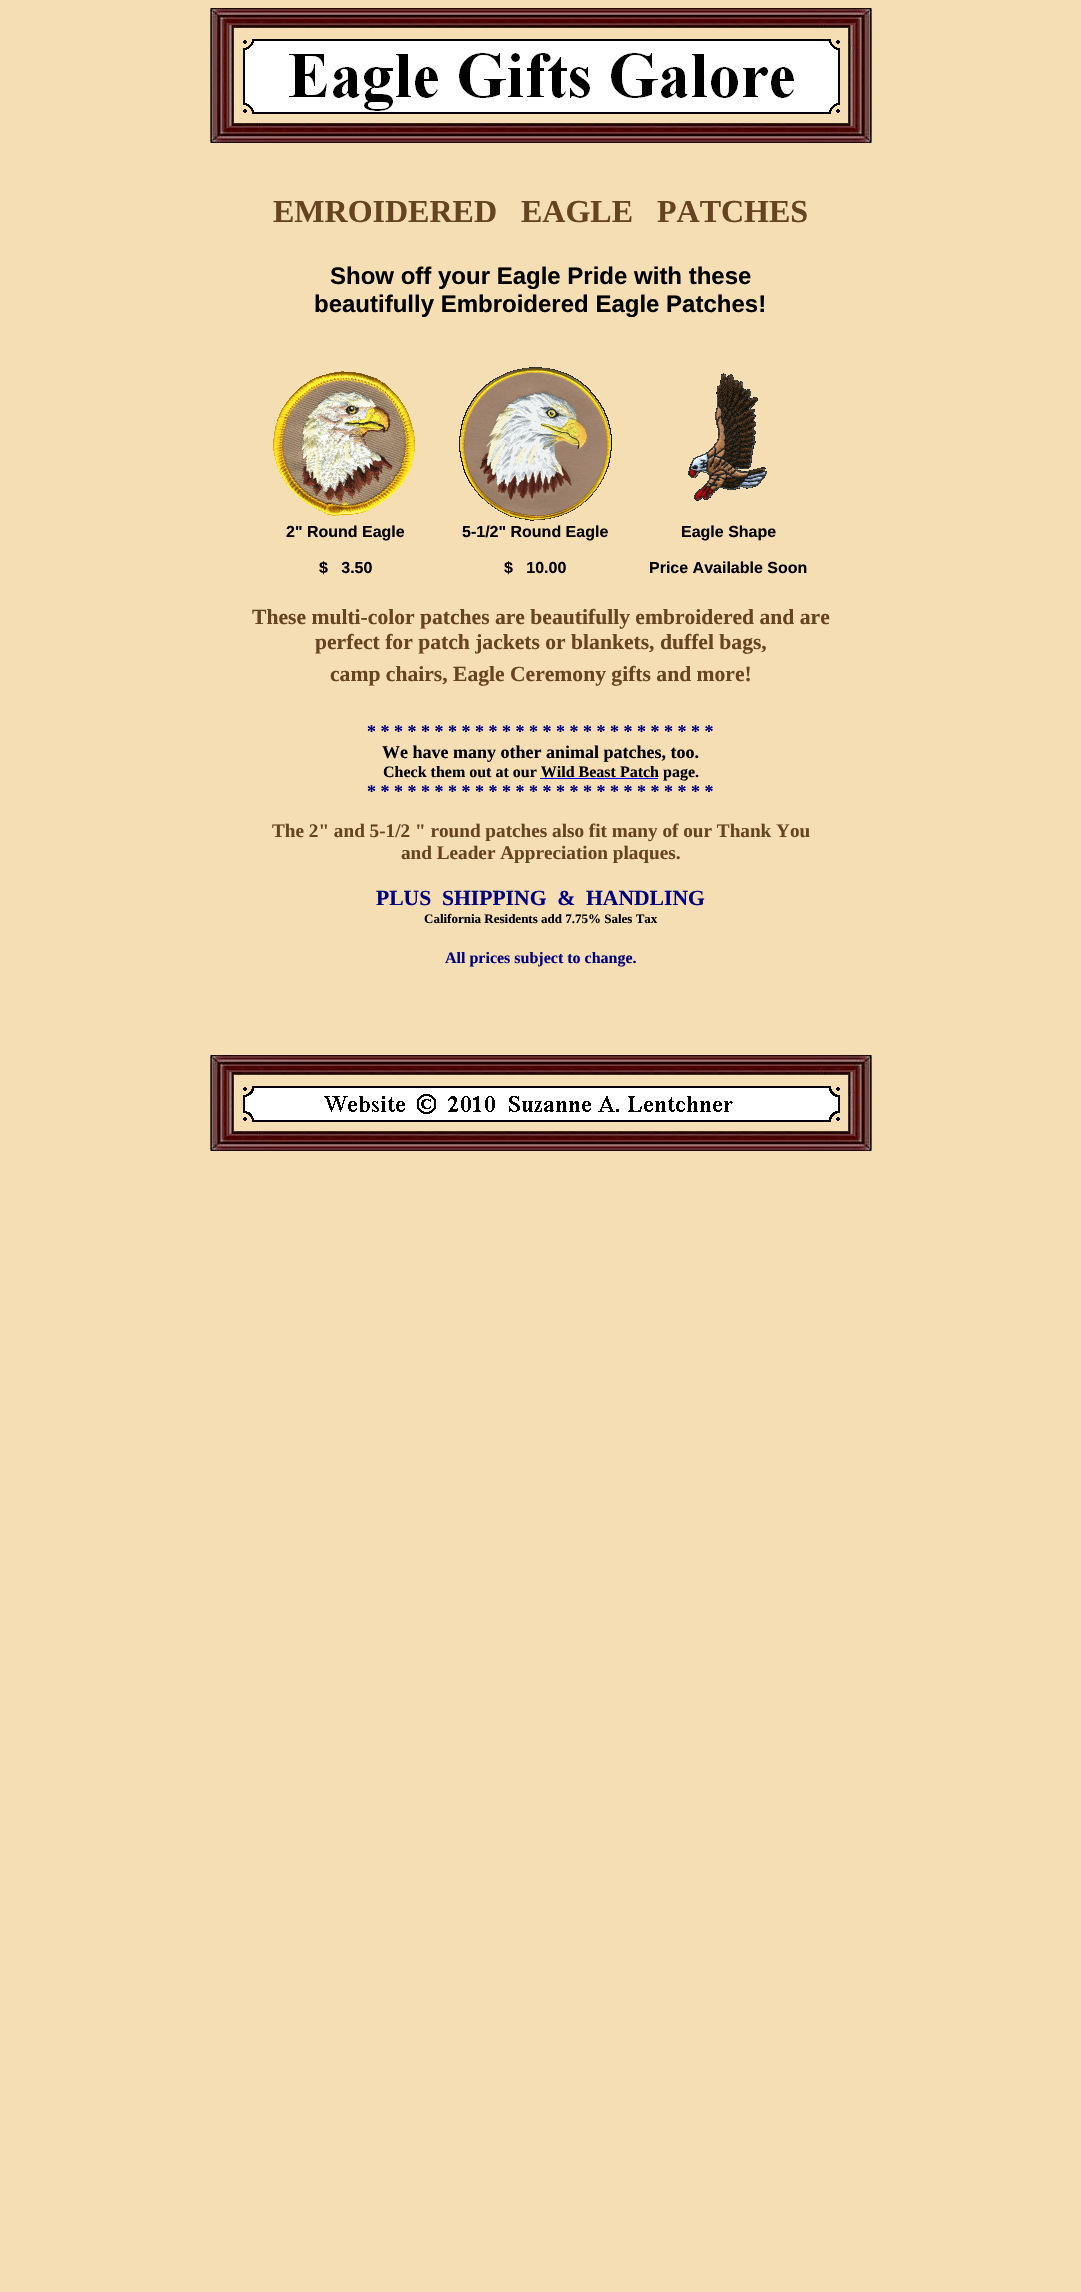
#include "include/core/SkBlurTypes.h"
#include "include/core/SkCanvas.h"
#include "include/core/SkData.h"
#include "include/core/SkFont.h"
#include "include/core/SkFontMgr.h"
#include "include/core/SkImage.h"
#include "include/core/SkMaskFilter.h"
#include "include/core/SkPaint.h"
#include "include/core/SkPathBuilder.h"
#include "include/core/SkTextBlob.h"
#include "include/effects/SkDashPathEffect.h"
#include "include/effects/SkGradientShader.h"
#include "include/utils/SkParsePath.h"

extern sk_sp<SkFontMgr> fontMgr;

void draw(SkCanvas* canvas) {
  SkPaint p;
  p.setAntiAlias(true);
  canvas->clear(SkColorSetRGB(245, 222, 179));
  canvas->drawImageRect(SkImages::DeferredFromEncodedData(SkData::MakeFromFileName("images/1.png")), SkRect::MakeLTRB(210, 8, 872, 143), SkSamplingOptions());
  canvas->drawImageRect(SkImages::DeferredFromEncodedData(SkData::MakeFromFileName("images/2.png")), SkRect::MakeLTRB(273, 371, 415, 516), SkSamplingOptions());
  canvas->drawImageRect(SkImages::DeferredFromEncodedData(SkData::MakeFromFileName("images/3.png")), SkRect::MakeLTRB(459, 367, 612, 521), SkSamplingOptions());
  canvas->drawImageRect(SkImages::DeferredFromEncodedData(SkData::MakeFromFileName("images/4.png")), SkRect::MakeLTRB(688, 373, 767, 501), SkSamplingOptions());
  canvas->drawImageRect(SkImages::DeferredFromEncodedData(SkData::MakeFromFileName("images/5.png")), SkRect::MakeLTRB(210, 1055, 872, 1151), SkSamplingOptions());
  SkFont font1(fontMgr->matchFamilyStyle("Liberation Serif", SkFontStyle::Bold()), 32);
  font1.setSubpixel(true);
  p.setColor(SkColorSetRGB(102, 68, 34));
  canvas->drawString("EMROIDERED", 273, 222, font1, p);
  canvas->drawString("EAGLE", 521, 222, font1, p);
  canvas->drawString("PATCHES", 657, 222, font1, p);
  SkFont font2(fontMgr->matchFamilyStyle("Liberation Sans", SkFontStyle::Bold()), 24);
  font2.setSubpixel(true);
  p.setColor(SK_ColorBLACK);
  canvas->drawString("Show off your Eagle Pride with these", 330, 284, font2, p);
  canvas->drawString("beautifully Embroidered Eagle Patches!", 314, 312, font2, p);
  SkFont font3(fontMgr->matchFamilyStyle("Liberation Sans", SkFontStyle::Bold()), 16);
  font3.setSubpixel(true);
  canvas->drawString("2\" Round Eagle", 286, 537, font3, p);
  canvas->drawString("5-1/2\" Round Eagle", 462, 537, font3, p);
  canvas->drawString("Eagle Shape", 681, 537, font3, p);
  canvas->drawString("$   3.50", 319, 573, font3, p);
  canvas->drawString("$   10.00", 504, 573, font3, p);
  canvas->drawString("Price Available Soon", 649, 573, font3, p);
  SkFont font4(fontMgr->matchFamilyStyle("Liberation Serif", SkFontStyle::Bold()), 21.6f);
  font4.setSubpixel(true);
  p.setColor(SkColorSetRGB(102, 68, 34));
  canvas->drawString("These multi-color patches are beautifully embroidered and are", 252, 624, font4, p);
  canvas->drawString("perfect for patch jackets or blankets, duffel bags,", 315, 649, font4, p);
  canvas->drawString("camp chairs, Eagle Ceremony gifts and more!", 330, 681, font4, p);
  SkFont font5(fontMgr->matchFamilyStyle("Liberation Serif", SkFontStyle::Bold()), 18);
  font5.setSubpixel(true);
  p.setColor(SkColorSetRGB(0, 0, 128));
  canvas->drawString("* * * * * * * * * * * * * * * * * * * * * * * * * *", 367, 737, font5, p);
  p.setColor(SK_ColorBLACK);
  canvas->drawString("We have many other animal patches, too.", 382, 758, font5, p);
  SkFont font6(fontMgr->matchFamilyStyle("Liberation Serif", SkFontStyle::Bold()), 16);
  font6.setSubpixel(true);
  canvas->drawString("Check them out at our Wild Beast Patch page.", 383, 777, font6, p);
  p.setColor(SkColorSetRGB(0, 0, 238));
  canvas->drawRect(SkRect::MakeLTRB(540, 778, 658, 779), p);
  p.setColor(SkColorSetRGB(0, 0, 128));
  canvas->drawString("* * * * * * * * * * * * * * * * * * * * * * * * * *", 367, 797, font5, p);
  SkFont font7(fontMgr->matchFamilyStyle("Liberation Serif", SkFontStyle::Bold()), 19.2f);
  font7.setSubpixel(true);
  p.setColor(SkColorSetRGB(102, 68, 34));
  canvas->drawString("The 2\" and 5-1/2 \" round patches also fit many of our Thank You", 272, 837, font7, p);
  canvas->drawString("and Leader Appreciation plaques.", 401, 859, font7, p);
  p.setColor(SkColorSetRGB(0, 0, 128));
  canvas->drawString("PLUS  SHIPPING  &  HANDLING", 376, 905, font4, p);
  SkFont font8(fontMgr->matchFamilyStyle("Liberation Serif", SkFontStyle::Bold()), 13);
  font8.setSubpixel(true);
  p.setColor(SK_ColorBLACK);
  canvas->drawString("California Residents add 7.75% Sales Tax", 424, 923, font8, p);
  p.setColor(SkColorSetRGB(0, 0, 128));
  canvas->drawString("All prices subject to change.", 445, 963, font6, p);
}
